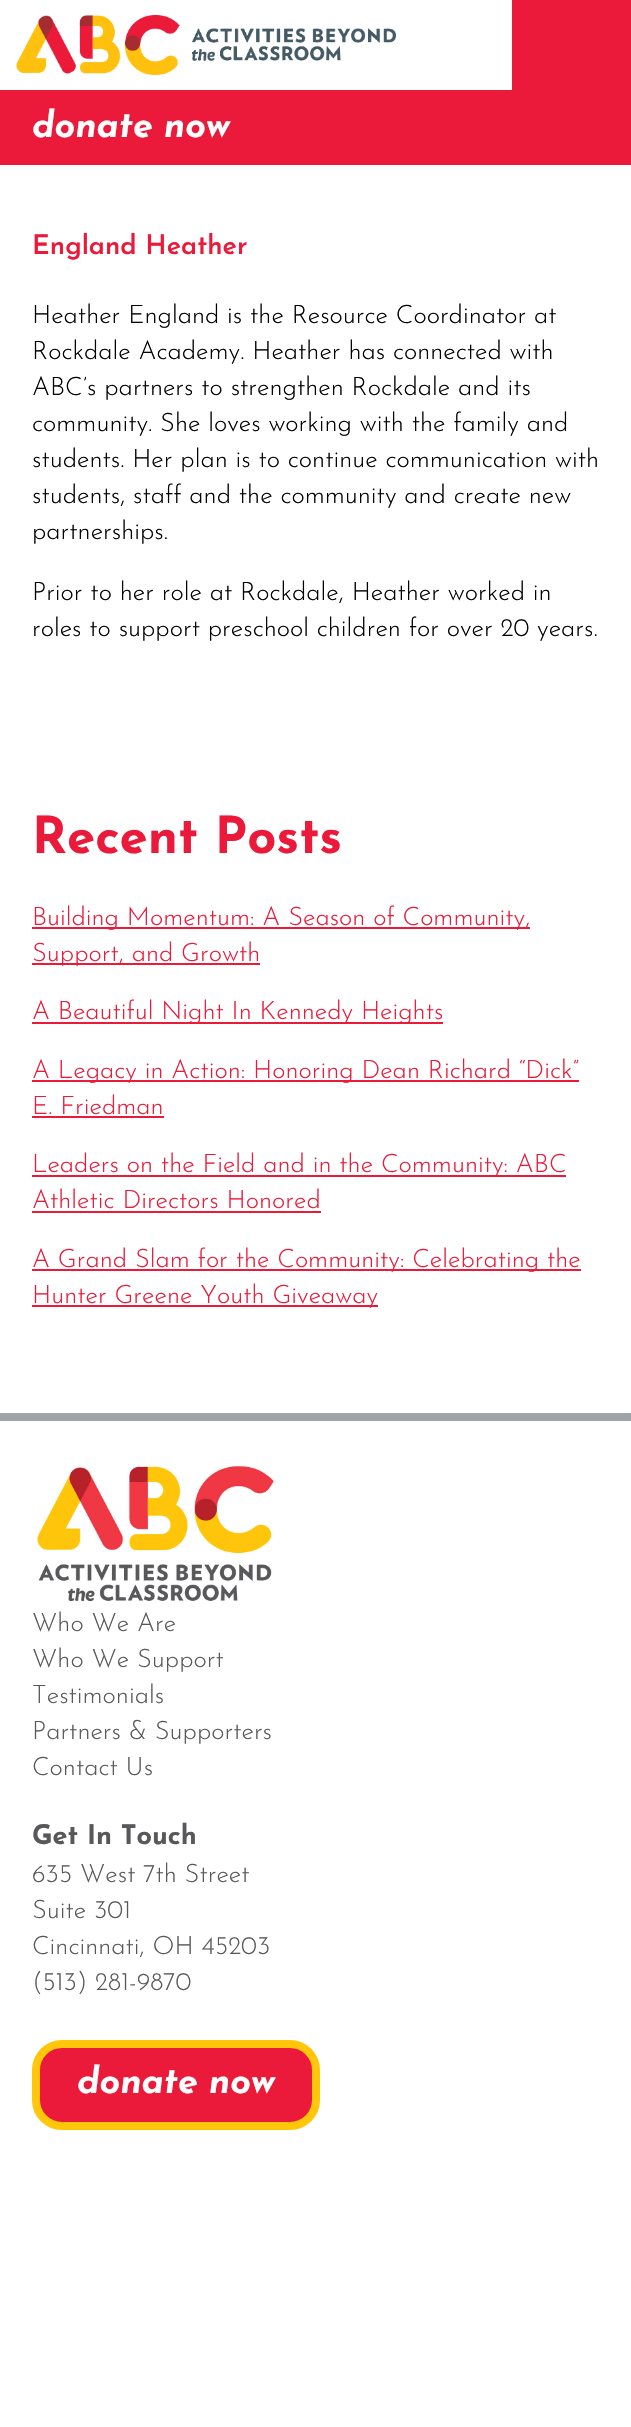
#include "include/core/SkBlurTypes.h"
#include "include/core/SkCanvas.h"
#include "include/core/SkData.h"
#include "include/core/SkFont.h"
#include "include/core/SkFontMgr.h"
#include "include/core/SkImage.h"
#include "include/core/SkMaskFilter.h"
#include "include/core/SkPaint.h"
#include "include/core/SkPathBuilder.h"
#include "include/core/SkTextBlob.h"
#include "include/effects/SkDashPathEffect.h"
#include "include/effects/SkGradientShader.h"
#include "include/utils/SkParsePath.h"

extern sk_sp<SkFontMgr> fontMgr;

void draw(SkCanvas* canvas) {
  SkPaint p;
  p.setAntiAlias(true);
  canvas->clear(SK_ColorWHITE);
  canvas->drawImageRect(SkImages::DeferredFromEncodedData(SkData::MakeFromFileName("images/1.png")), SkRect::MakeLTRB(16, 15, 396, 75), SkSamplingOptions());
  p.setColor(SkColorSetRGB(235, 26, 58));
  canvas->drawRect(SkRect::MakeLTRB(512, 0, 631, 90), p);
  canvas->drawRect(SkRect::MakeLTRB(0, 90, 631, 165), p);
  canvas->drawRect(SkRect::MakeLTRB(32, 927, 530, 929), p);
  canvas->drawRect(SkRect::MakeLTRB(32, 963, 260, 965), p);
  canvas->drawRect(SkRect::MakeLTRB(32, 1022, 443, 1024), p);
  canvas->drawRect(SkRect::MakeLTRB(32, 1080, 579, 1082), p);
  canvas->drawRect(SkRect::MakeLTRB(32, 1116, 164, 1118), p);
  canvas->drawRect(SkRect::MakeLTRB(32, 1175, 566, 1177), p);
  canvas->drawRect(SkRect::MakeLTRB(32, 1211, 321, 1213), p);
  canvas->drawRect(SkRect::MakeLTRB(32, 1269, 581, 1271), p);
  canvas->drawRect(SkRect::MakeLTRB(32, 1305, 378, 1307), p);
  p.setColor(SkColorSetRGB(159, 164, 167));
  canvas->drawRect(SkRect::MakeLTRB(0, 1413, 631, 1421), p);
  canvas->drawImageRect(SkImages::DeferredFromEncodedData(SkData::MakeFromFileName("images/2.png")), SkRect::MakeLTRB(37, 1466, 275, 1602), SkSamplingOptions());
  p.setColor(SkColorSetRGB(235, 26, 58));
  canvas->drawRoundRect(SkRect::MakeLTRB(36, 2044, 316, 2126), 26, 26, p);
  p.setStyle(SkPaint::kStroke_Style);
  p.setStrokeWidth(8);
  p.setColor(SkColorSetRGB(255, 198, 10));
  canvas->drawRoundRect(SkRect::MakeLTRB(36, 2044, 316, 2126), 26, 26, p);
  SkFont font1(fontMgr->matchFamilyStyle("Josefin Sans", SkFontStyle::BoldItalic()), 36);
  font1.setSubpixel(true);
  p.setStyle(SkPaint::kFill_Style);
  p.setColor(SK_ColorWHITE);
  canvas->drawString("donate now", 32, 137, font1, p);
  SkFont font2(fontMgr->matchFamilyStyle("Josefin Sans", SkFontStyle(600, SkFontStyle::kNormal_Width, SkFontStyle::kUpright_Slant)), 27);
  font2.setSubpixel(true);
  p.setColor(SkColorSetRGB(235, 26, 58));
  canvas->drawString("England Heather", 32, 254, font2, p);
  SkFont font3(fontMgr->matchFamilyStyle("Josefin Sans", SkFontStyle(300, SkFontStyle::kNormal_Width, SkFontStyle::kUpright_Slant)), 25.5f);
  font3.setSubpixel(true);
  p.setColor(SK_ColorBLACK);
  canvas->drawString("Heather England is the Resource Coordinator at", 32, 323, font3, p);
  canvas->drawString("Rockdale Academy. Heather has connected with", 32, 359, font3, p);
  canvas->drawString("ABC’s partners to strengthen Rockdale and its", 32, 395, font3, p);
  canvas->drawString("community. She loves working with the family and", 32, 431, font3, p);
  canvas->drawString("students. Her plan is to continue communication with", 32, 467, font3, p);
  canvas->drawString("students, staff and the community and create new", 32, 503, font3, p);
  canvas->drawString("partnerships.", 32, 539, font3, p);
  canvas->drawString("Prior to her role at Rockdale, Heather worked in", 32, 600, font3, p);
  canvas->drawString("roles to support preschool children for over 20 years.", 32, 636, font3, p);
  SkFont font4(fontMgr->matchFamilyStyle("Josefin Sans", SkFontStyle::Bold()), 51);
  font4.setSubpixel(true);
  p.setColor(SkColorSetRGB(235, 26, 58));
  canvas->drawString("Recent Posts", 32, 853, font4, p);
  canvas->drawString("Building Momentum: A Season of Community,", 32, 925, font3, p);
  canvas->drawString("Support, and Growth", 32, 961, font3, p);
  canvas->drawString("A Beautiful Night In Kennedy Heights", 32, 1019, font3, p);
  canvas->drawString("A Legacy in Action: Honoring Dean Richard “Dick”", 32, 1078, font3, p);
  canvas->drawString("E. Friedman", 32, 1114, font3, p);
  canvas->drawString("Leaders on the Field and in the Community: ABC", 32, 1172, font3, p);
  canvas->drawString("Athletic Directors Honored", 32, 1208, font3, p);
  canvas->drawString("A Grand Slam for the Community: Celebrating the", 32, 1267, font3, p);
  canvas->drawString("Hunter Greene Youth Giveaway", 32, 1303, font3, p);
  p.setColor(SkColorSetRGB(88, 88, 90));
  canvas->drawString("Who We Are", 32, 1631, font3, p);
  canvas->drawString("Who We Support", 32, 1667, font3, p);
  canvas->drawString("Testimonials", 32, 1703, font3, p);
  canvas->drawString("Partners & Supporters", 32, 1739, font3, p);
  canvas->drawString("Contact Us", 32, 1775, font3, p);
  SkFont font5(fontMgr->matchFamilyStyle("Josefin Sans", SkFontStyle::Bold()), 27);
  font5.setSubpixel(true);
  canvas->drawString("Get In Touch", 32, 1844, font5, p);
  canvas->drawString("635 West 7th Street", 32, 1882, font3, p);
  canvas->drawString("Suite 301", 32, 1918, font3, p);
  canvas->drawString("Cincinnati, OH 45203", 32, 1954, font3, p);
  canvas->drawString("(513) 281-9870", 32, 1990, font3, p);
  p.setColor(SK_ColorWHITE);
  canvas->drawString("donate now", 77, 2093, font1, p);
}
